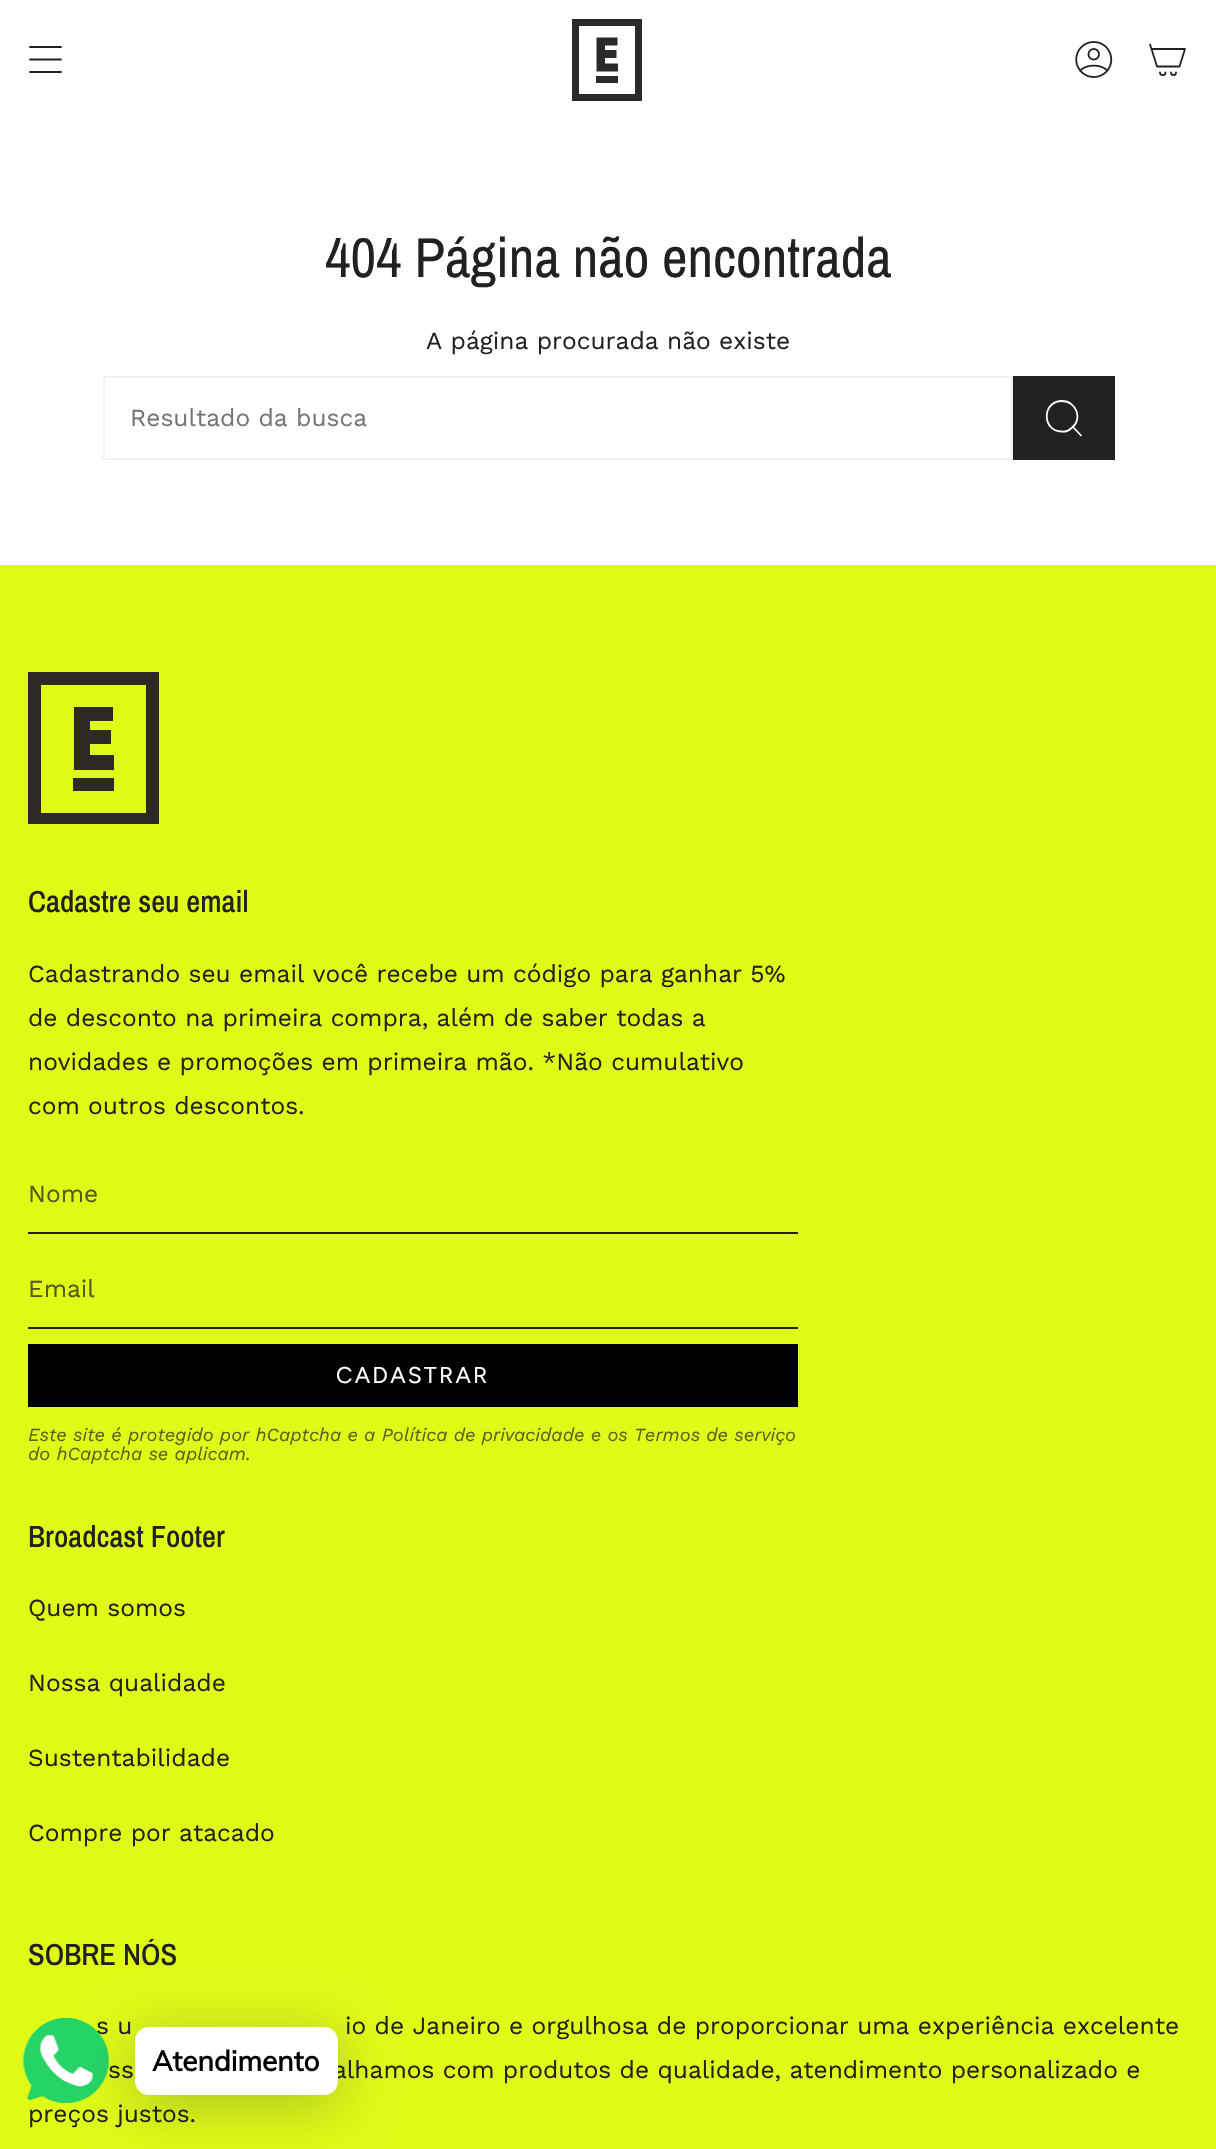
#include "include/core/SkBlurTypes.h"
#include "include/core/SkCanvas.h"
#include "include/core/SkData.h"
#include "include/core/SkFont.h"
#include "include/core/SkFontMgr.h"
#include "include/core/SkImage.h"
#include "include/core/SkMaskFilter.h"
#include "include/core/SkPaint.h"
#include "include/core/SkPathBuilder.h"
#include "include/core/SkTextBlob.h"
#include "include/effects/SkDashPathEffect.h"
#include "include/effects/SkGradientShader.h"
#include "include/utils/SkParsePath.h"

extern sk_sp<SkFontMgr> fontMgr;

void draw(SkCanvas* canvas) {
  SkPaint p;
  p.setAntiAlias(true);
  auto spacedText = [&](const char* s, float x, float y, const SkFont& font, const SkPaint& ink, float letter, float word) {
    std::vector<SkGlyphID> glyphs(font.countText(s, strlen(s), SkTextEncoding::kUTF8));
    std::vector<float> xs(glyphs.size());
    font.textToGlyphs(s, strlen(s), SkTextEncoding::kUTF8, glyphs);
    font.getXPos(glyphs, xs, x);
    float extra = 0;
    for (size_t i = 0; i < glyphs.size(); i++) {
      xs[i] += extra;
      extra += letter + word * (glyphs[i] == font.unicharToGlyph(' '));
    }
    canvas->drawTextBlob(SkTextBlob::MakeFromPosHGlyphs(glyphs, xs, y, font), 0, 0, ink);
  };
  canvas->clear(SK_ColorWHITE);
  p.setStyle(SkPaint::kStroke_Style);
  p.setStrokeWidth(1.8f);
  p.setStrokeCap(SkPaint::kRound_Cap);
  p.setStrokeJoin(SkPaint::kRound_Join);
  p.setColor(SkColorSetRGB(33, 33, 33));
  canvas->drawPath(SkPathBuilder().moveTo(30, 47).lineTo(61, 47).moveTo(30, 59.5f).lineTo(61, 59.5f).moveTo(30, 72).lineTo(61, 72).detach(), p);
  p.setStyle(SkPaint::kFill_Style);
  p.setColor(SkColorSetRGB(45, 41, 39));
  canvas->drawPath(SkPathBuilder().moveTo(642, 101).lineTo(572, 101).lineTo(572, 19).lineTo(642, 19).close().moveTo(579, 94).lineTo(635, 94).lineTo(635, 26).lineTo(579, 26).close().detach(), p);
  canvas->drawPath(SkPathBuilder().moveTo(617.5f, 45.5f).lineTo(605, 45.5f).lineTo(605, 50).lineTo(616.5f, 50).lineTo(616.5f, 58).lineTo(605, 58).lineTo(605, 63.5f).lineTo(618, 63.5f).lineTo(618, 71.5f).lineTo(596.5f, 71.5f).lineTo(596.5f, 37.5f).lineTo(617.5f, 37.5f).close().detach(), p);
  canvas->drawRect(SkRect::MakeLTRB(596, 76, 618, 83), p);
  canvas->drawImageRect(SkImages::DeferredFromEncodedData(SkData::MakeFromFileName("images/1.png")), SkRect::MakeLTRB(1075, 41, 1113, 78), SkSamplingOptions());
  p.setStyle(SkPaint::kStroke_Style);
  p.setColor(SkColorSetRGB(33, 33, 33));
  canvas->drawPath(SkPathBuilder().moveTo(1151.5f, 49).lineTo(1185, 49).lineTo(1179.5f, 66.5f).lineTo(1157, 66.5f).close().moveTo(1151.5f, 49).lineTo(1150, 44.5f).moveTo(1165.5f, 72.5f).cubicTo(1165.5f, 76, 1160, 76, 1160, 72.5f).moveTo(1176, 72.5f).cubicTo(1176, 76, 1171, 76, 1171, 72.5f).detach(), p);
  p.setStrokeWidth(2);
  p.setStrokeCap(SkPaint::kButt_Cap);
  p.setStrokeJoin(SkPaint::kMiter_Join);
  p.setColor(SkColorSetRGB(240, 240, 240));
  canvas->drawRect(SkRect::MakeLTRB(104, 377, 1012, 459), p);
  p.setStyle(SkPaint::kFill_Style);
  p.setColor(SkColorSetRGB(33, 33, 33));
  canvas->drawRect(SkRect::MakeLTRB(1013, 376, 1115, 460), p);
  p.setStyle(SkPaint::kStroke_Style);
  p.setStrokeWidth(1.8f);
  p.setColor(SK_ColorWHITE);
  canvas->drawPath(SkPathBuilder().moveTo(1062, 401).cubicTo(1076.5f, 401, 1083.5f, 420, 1071, 428.5f).cubicTo(1068.5f, 431, 1065, 432, 1061.5f, 431.5f).cubicTo(1041.5f, 431, 1042, 401, 1062, 401).close().moveTo(1073, 427).lineTo(1081.5f, 436).detach(), p);
  p.setStyle(SkPaint::kFill_Style);
  p.setColor(SkColorSetRGB(223, 250, 23));
  canvas->drawRect(SkRect::MakeLTRB(0, 565, 1216, 2149), p);
  canvas->save();
  canvas->clipRect(SkRect::MakeLTRB(28, 672, 159, 824));
  p.setColor(SkColorSetRGB(45, 41, 39));
  canvas->drawPath(SkPathBuilder().moveTo(159, 826).lineTo(28, 826).lineTo(28, 672).lineTo(159, 672).close().moveTo(41, 813).lineTo(146, 813).lineTo(146, 685).lineTo(41, 685).close().detach(), p);
  canvas->restore();
  canvas->drawPath(SkPathBuilder().moveTo(113, 721).lineTo(90, 721).lineTo(90, 730).lineTo(111, 730).lineTo(111, 744).lineTo(90, 744).lineTo(90, 755).lineTo(114, 755).lineTo(114, 770).lineTo(74, 770).lineTo(74, 707).lineTo(113, 707).close().detach(), p);
  canvas->drawRect(SkRect::MakeLTRB(73, 778, 114, 791), p);
  p.setColor(SkColorSetRGB(33, 33, 33));
  canvas->drawRect(SkRect::MakeLTRB(28, 1232, 798, 1234), p);
  canvas->drawRect(SkRect::MakeLTRB(28, 1327, 798, 1329), p);
  p.setColor(SK_ColorBLACK);
  canvas->drawRect(SkRect::MakeLTRB(28, 1344, 798, 1407), p);
  SkFont font1(fontMgr->matchFamilyStyle("Archivo Narrow", SkFontStyle::Normal()), 56);
  font1.setSubpixel(true);
  p.setColor(SkColorSetRGB(33, 33, 33));
  canvas->drawString("404 Página não encontrada", 325, 277, font1, p);
  SkFont font2(fontMgr->matchFamilyStyle("Work Sans", SkFontStyle::Normal()), 24.5f);
  font2.setSubpixel(true);
  canvas->drawString("A página procurada não existe", 426, 349, font2, p);
  p.setColor(SkColorSetRGB(117, 117, 117));
  canvas->drawString("Resultado da busca", 130, 426, font2, p);
  SkFont font3(fontMgr->matchFamilyStyle("Archivo Narrow", SkFontStyle(500, SkFontStyle::kNormal_Width, SkFontStyle::kUpright_Slant)), 30.5f);
  font3.setSubpixel(true);
  p.setColor(SkColorSetRGB(33, 33, 33));
  canvas->drawString("Cadastre seu email", 28, 912, font3, p);
  canvas->drawString("Cadastrando seu email você recebe um código para ganhar 5%", 28, 982, font2, p);
  canvas->drawString("de desconto na primeira compra, além de saber todas a", 28, 1026, font2, p);
  canvas->drawString("novidades e promoções em primeira mão. *Não cumulativo", 28, 1070, font2, p);
  canvas->drawString("com outros descontos.", 28, 1114, font2, p);
  p.setColor(SkColorSetRGB(81, 87, 31));
  canvas->drawString("Nome", 28, 1202, font2, p);
  canvas->drawString("Email", 28, 1297, font2, p);
  SkFont font4(fontMgr->matchFamilyStyle("Figtree", SkFontStyle::Normal()), 22.75f);
  font4.setSubpixel(true);
  p.setColor(SK_ColorWHITE);
  spacedText("CADASTRAR", 336, 1383, font4, p, 2.25f, 0);
  SkFont font5(fontMgr->matchFamilyStyle("Work Sans", SkFontStyle::Italic()), 18.4f);
  font5.setSubpixel(true);
  p.setColor(SkColorSetRGB(90, 98, 30));
  canvas->drawString("Este site é protegido por hCaptcha e a Política de privacidade e os Termos de serviço", 28, 1441, font5, p);
  canvas->drawString("do hCaptcha se aplicam.", 28, 1460, font5, p);
  p.setColor(SkColorSetRGB(33, 33, 33));
  canvas->drawString("Broadcast Footer", 28, 1547, font3, p);
  canvas->drawString("Quem somos", 28, 1616, font2, p);
  canvas->drawString("Nossa qualidade", 28, 1691, font2, p);
  canvas->drawString("Sustentabilidade", 28, 1766, font2, p);
  canvas->drawString("Compre por atacado", 28, 1841, font2, p);
  canvas->drawString("SOBRE NÓS", 28, 1965, font3, p);
  canvas->drawString("s u", 96, 2034, font2, p);
  canvas->drawString("io de Janeiro e orgulhosa de proporcionar uma experiência excelente", 345, 2034, font2, p);
  canvas->drawString("ss", 108, 2078, font2, p);
  canvas->drawString("alhamos com produtos de qualidade, atendimento personalizado e", 333, 2078, font2, p);
  canvas->drawString("preços justos.", 28, 2122, font2, p);
  canvas->drawImageRect(SkImages::DeferredFromEncodedData(SkData::MakeFromFileName("images/2.png")), SkRect::MakeLTRB(22, 2017, 110, 2103), SkSamplingOptions());
  p.setColor(SkColorSetARGB(61, 0, 18, 46));
  p.setMaskFilter(SkMaskFilter::MakeBlur(kNormal_SkBlurStyle, 28));
  canvas->drawRoundRect(SkRect::MakeLTRB(135, 2037, 338, 2105), 14, 14, p);
  p.setMaskFilter(nullptr);
  p.setColor(SK_ColorWHITE);
  canvas->drawRoundRect(SkRect::MakeLTRB(135, 2027, 338, 2095), 14, 14, p);
  SkFont font6(fontMgr->matchFamilyStyle("Muli", SkFontStyle::Bold()), 28);
  font6.setSubpixel(true);
  p.setColor(SK_ColorBLACK);
  canvas->drawString("Atendimento", 152, 2071, font6, p);
}
